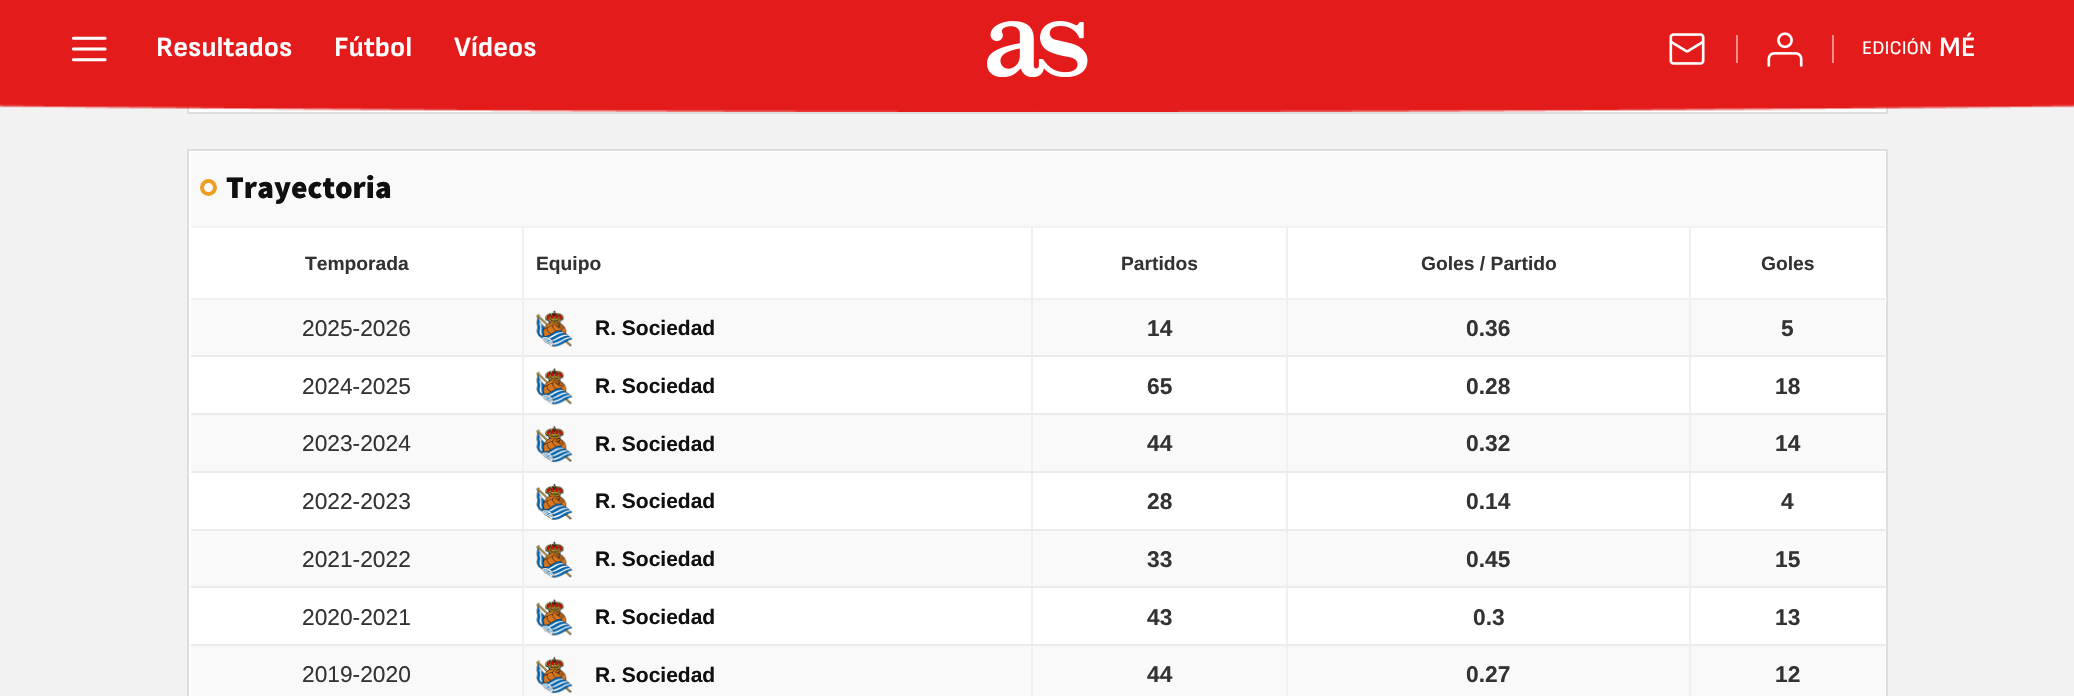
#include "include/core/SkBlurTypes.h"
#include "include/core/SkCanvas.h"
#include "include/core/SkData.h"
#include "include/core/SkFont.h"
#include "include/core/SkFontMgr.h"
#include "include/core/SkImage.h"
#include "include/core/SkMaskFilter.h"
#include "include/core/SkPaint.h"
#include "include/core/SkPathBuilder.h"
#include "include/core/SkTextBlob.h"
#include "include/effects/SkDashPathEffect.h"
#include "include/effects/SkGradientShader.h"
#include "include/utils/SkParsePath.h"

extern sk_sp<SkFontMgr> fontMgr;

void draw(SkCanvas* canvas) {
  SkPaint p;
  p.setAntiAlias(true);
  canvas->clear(SkColorSetRGB(242, 242, 242));
  p.setColor(SK_ColorWHITE);
  canvas->drawRect(SkRect::MakeLTRB(189, 106, 1886, 112), p);
  p.setStyle(SkPaint::kStroke_Style);
  p.setStrokeWidth(2);
  p.setColor(SkColorSetRGB(221, 221, 221));
  canvas->drawRect(SkRect::MakeLTRB(188, -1, 1887, 113), p);
  p.setStyle(SkPaint::kFill_Style);
  p.setColor(SkColorSetRGB(249, 249, 249));
  canvas->drawRect(SkRect::MakeLTRB(191, 106, 1885, 110), p);
  canvas->drawImageRect(SkImages::DeferredFromEncodedData(SkData::MakeFromFileName("images/1.png")), SkRect::MakeLTRB(0, 0, 2074, 112), SkSamplingOptions());
  canvas->drawImageRect(SkImages::DeferredFromEncodedData(SkData::MakeFromFileName("images/2.png")), SkRect::MakeLTRB(71, 36, 107, 62), SkSamplingOptions());
  canvas->drawImageRect(SkImages::DeferredFromEncodedData(SkData::MakeFromFileName("images/3.png")), SkRect::MakeLTRB(987, 21, 1088, 77), SkSamplingOptions());
  canvas->drawImageRect(SkImages::DeferredFromEncodedData(SkData::MakeFromFileName("images/4.png")), SkRect::MakeLTRB(1669, 33, 1705, 65), SkSamplingOptions());
  p.setColor(SkColorSetRGB(242, 141, 141));
  canvas->drawRect(SkRect::MakeLTRB(1736, 35, 1738, 63), p);
  canvas->drawImageRect(SkImages::DeferredFromEncodedData(SkData::MakeFromFileName("images/5.png")), SkRect::MakeLTRB(1767, 32, 1803, 67), SkSamplingOptions());
  canvas->drawRect(SkRect::MakeLTRB(1832, 35, 1834, 63), p);
  p.setColor(SK_ColorWHITE);
  canvas->drawRect(SkRect::MakeLTRB(188, 150, 1887, 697), p);
  p.setStyle(SkPaint::kStroke_Style);
  p.setColor(SkColorSetRGB(221, 221, 221));
  canvas->drawRect(SkRect::MakeLTRB(188, 150, 1887, 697), p);
  p.setStyle(SkPaint::kFill_Style);
  p.setColor(SkColorSetRGB(249, 249, 249));
  canvas->drawRect(SkRect::MakeLTRB(191, 152, 1885, 226), p);
  p.setColor(SkColorSetRGB(242, 242, 242));
  canvas->drawRect(SkRect::MakeLTRB(191, 226, 1885, 228), p);
  p.setStyle(SkPaint::kStroke_Style);
  p.setStrokeWidth(4);
  p.setColor(SkColorSetRGB(236, 159, 35));
  canvas->drawCircle(208.5f, 187.5f, 6.5f, p);
  p.setStyle(SkPaint::kFill_Style);
  p.setColor(SkColorSetRGB(249, 249, 249));
  canvas->drawRect(SkRect::MakeLTRB(191, 300, 1885, 355), p);
  canvas->drawRect(SkRect::MakeLTRB(191, 415, 1885, 471), p);
  canvas->drawRect(SkRect::MakeLTRB(191, 531, 1885, 586), p);
  canvas->drawRect(SkRect::MakeLTRB(191, 646, 1885, 696), p);
  p.setColor(SkColorSetRGB(240, 240, 240));
  canvas->drawRect(SkRect::MakeLTRB(1689, 644, 1691, 696), p);
  p.setColor(SkColorSetRGB(235, 235, 235));
  canvas->drawRect(SkRect::MakeLTRB(1689, 644, 1887, 646), p);
  p.setColor(SkColorSetRGB(240, 240, 240));
  canvas->drawRect(SkRect::MakeLTRB(1689, 586, 1691, 646), p);
  p.setColor(SkColorSetRGB(235, 235, 235));
  canvas->drawRect(SkRect::MakeLTRB(1689, 586, 1887, 588), p);
  p.setColor(SkColorSetRGB(240, 240, 240));
  canvas->drawRect(SkRect::MakeLTRB(1689, 529, 1691, 588), p);
  p.setColor(SkColorSetRGB(235, 235, 235));
  canvas->drawRect(SkRect::MakeLTRB(1689, 529, 1887, 531), p);
  p.setColor(SkColorSetRGB(240, 240, 240));
  canvas->drawRect(SkRect::MakeLTRB(1689, 471, 1691, 530), p);
  p.setColor(SkColorSetRGB(235, 235, 235));
  canvas->drawRect(SkRect::MakeLTRB(1689, 471, 1887, 473), p);
  p.setColor(SkColorSetRGB(240, 240, 240));
  canvas->drawRect(SkRect::MakeLTRB(1689, 413, 1691, 473), p);
  p.setColor(SkColorSetRGB(235, 235, 235));
  canvas->drawRect(SkRect::MakeLTRB(1689, 413, 1887, 415), p);
  p.setColor(SkColorSetRGB(240, 240, 240));
  canvas->drawRect(SkRect::MakeLTRB(1689, 355, 1691, 415), p);
  p.setColor(SkColorSetRGB(235, 235, 235));
  canvas->drawRect(SkRect::MakeLTRB(1689, 355, 1887, 357), p);
  p.setColor(SkColorSetRGB(240, 240, 240));
  canvas->drawRect(SkRect::MakeLTRB(1689, 298, 1691, 357), p);
  canvas->drawRect(SkRect::MakeLTRB(1689, 298, 1887, 300), p);
  canvas->drawRect(SkRect::MakeLTRB(1689, 228, 1691, 299), p);
  canvas->drawRect(SkRect::MakeLTRB(1286, 644, 1288, 696), p);
  p.setColor(SkColorSetRGB(235, 235, 235));
  canvas->drawRect(SkRect::MakeLTRB(1286, 644, 1691, 646), p);
  p.setColor(SkColorSetRGB(240, 240, 240));
  canvas->drawRect(SkRect::MakeLTRB(1286, 586, 1288, 646), p);
  p.setColor(SkColorSetRGB(235, 235, 235));
  canvas->drawRect(SkRect::MakeLTRB(1286, 586, 1691, 588), p);
  p.setColor(SkColorSetRGB(240, 240, 240));
  canvas->drawRect(SkRect::MakeLTRB(1286, 529, 1288, 588), p);
  p.setColor(SkColorSetRGB(235, 235, 235));
  canvas->drawRect(SkRect::MakeLTRB(1286, 529, 1691, 531), p);
  p.setColor(SkColorSetRGB(240, 240, 240));
  canvas->drawRect(SkRect::MakeLTRB(1286, 471, 1288, 530), p);
  p.setColor(SkColorSetRGB(235, 235, 235));
  canvas->drawRect(SkRect::MakeLTRB(1286, 471, 1691, 473), p);
  p.setColor(SkColorSetRGB(240, 240, 240));
  canvas->drawRect(SkRect::MakeLTRB(1286, 413, 1288, 473), p);
  p.setColor(SkColorSetRGB(235, 235, 235));
  canvas->drawRect(SkRect::MakeLTRB(1286, 413, 1691, 415), p);
  p.setColor(SkColorSetRGB(240, 240, 240));
  canvas->drawRect(SkRect::MakeLTRB(1286, 355, 1288, 415), p);
  p.setColor(SkColorSetRGB(235, 235, 235));
  canvas->drawRect(SkRect::MakeLTRB(1286, 355, 1691, 357), p);
  p.setColor(SkColorSetRGB(240, 240, 240));
  canvas->drawRect(SkRect::MakeLTRB(1286, 298, 1288, 357), p);
  canvas->drawRect(SkRect::MakeLTRB(1286, 298, 1691, 300), p);
  canvas->drawRect(SkRect::MakeLTRB(1286, 228, 1288, 299), p);
  canvas->drawRect(SkRect::MakeLTRB(1031, 644, 1033, 696), p);
  p.setColor(SkColorSetRGB(235, 235, 235));
  canvas->drawRect(SkRect::MakeLTRB(1031, 644, 1288, 646), p);
  p.setColor(SkColorSetRGB(240, 240, 240));
  canvas->drawRect(SkRect::MakeLTRB(1031, 586, 1033, 646), p);
  p.setColor(SkColorSetRGB(235, 235, 235));
  canvas->drawRect(SkRect::MakeLTRB(1031, 586, 1288, 588), p);
  p.setColor(SkColorSetRGB(240, 240, 240));
  canvas->drawRect(SkRect::MakeLTRB(1031, 529, 1033, 588), p);
  p.setColor(SkColorSetRGB(235, 235, 235));
  canvas->drawRect(SkRect::MakeLTRB(1031, 529, 1288, 531), p);
  p.setColor(SkColorSetRGB(240, 240, 240));
  canvas->drawRect(SkRect::MakeLTRB(1031, 471, 1033, 530), p);
  p.setColor(SkColorSetRGB(235, 235, 235));
  canvas->drawRect(SkRect::MakeLTRB(1031, 471, 1288, 473), p);
  p.setColor(SkColorSetRGB(240, 240, 240));
  canvas->drawRect(SkRect::MakeLTRB(1031, 413, 1033, 473), p);
  p.setColor(SkColorSetRGB(235, 235, 235));
  canvas->drawRect(SkRect::MakeLTRB(1031, 413, 1288, 415), p);
  p.setColor(SkColorSetRGB(240, 240, 240));
  canvas->drawRect(SkRect::MakeLTRB(1031, 355, 1033, 415), p);
  p.setColor(SkColorSetRGB(235, 235, 235));
  canvas->drawRect(SkRect::MakeLTRB(1031, 355, 1288, 357), p);
  p.setColor(SkColorSetRGB(240, 240, 240));
  canvas->drawRect(SkRect::MakeLTRB(1031, 298, 1033, 357), p);
  canvas->drawRect(SkRect::MakeLTRB(1031, 298, 1288, 300), p);
  canvas->drawRect(SkRect::MakeLTRB(1031, 228, 1033, 299), p);
  canvas->drawRect(SkRect::MakeLTRB(522, 644, 524, 696), p);
  p.setColor(SkColorSetRGB(235, 235, 235));
  canvas->drawRect(SkRect::MakeLTRB(522, 644, 1033, 646), p);
  p.setColor(SkColorSetRGB(240, 240, 240));
  canvas->drawRect(SkRect::MakeLTRB(522, 586, 524, 646), p);
  p.setColor(SkColorSetRGB(235, 235, 235));
  canvas->drawRect(SkRect::MakeLTRB(522, 586, 1033, 588), p);
  p.setColor(SkColorSetRGB(240, 240, 240));
  canvas->drawRect(SkRect::MakeLTRB(522, 529, 524, 588), p);
  p.setColor(SkColorSetRGB(235, 235, 235));
  canvas->drawRect(SkRect::MakeLTRB(522, 529, 1033, 531), p);
  p.setColor(SkColorSetRGB(240, 240, 240));
  canvas->drawRect(SkRect::MakeLTRB(522, 471, 524, 530), p);
  p.setColor(SkColorSetRGB(235, 235, 235));
  canvas->drawRect(SkRect::MakeLTRB(522, 471, 1033, 473), p);
  p.setColor(SkColorSetRGB(240, 240, 240));
  canvas->drawRect(SkRect::MakeLTRB(522, 413, 524, 473), p);
  p.setColor(SkColorSetRGB(235, 235, 235));
  canvas->drawRect(SkRect::MakeLTRB(522, 413, 1033, 415), p);
  p.setColor(SkColorSetRGB(240, 240, 240));
  canvas->drawRect(SkRect::MakeLTRB(522, 355, 524, 415), p);
  p.setColor(SkColorSetRGB(235, 235, 235));
  canvas->drawRect(SkRect::MakeLTRB(522, 355, 1033, 357), p);
  p.setColor(SkColorSetRGB(240, 240, 240));
  canvas->drawRect(SkRect::MakeLTRB(522, 298, 524, 357), p);
  canvas->drawRect(SkRect::MakeLTRB(522, 298, 1033, 300), p);
  canvas->drawRect(SkRect::MakeLTRB(522, 228, 524, 299), p);
  canvas->drawRect(SkRect::MakeLTRB(191, 298, 523, 300), p);
  p.setColor(SkColorSetRGB(235, 235, 235));
  canvas->drawRect(SkRect::MakeLTRB(191, 355, 523, 357), p);
  canvas->drawImageRect(SkImages::DeferredFromEncodedData(SkData::MakeFromFileName("images/6.png")), SkRect::MakeLTRB(536, 310, 573, 347), SkSamplingOptions());
  canvas->drawRect(SkRect::MakeLTRB(191, 413, 523, 415), p);
  canvas->drawImageRect(SkImages::DeferredFromEncodedData(SkData::MakeFromFileName("images/7.png")), SkRect::MakeLTRB(536, 367, 573, 405), SkSamplingOptions());
  canvas->drawRect(SkRect::MakeLTRB(191, 471, 523, 473), p);
  canvas->drawImageRect(SkImages::DeferredFromEncodedData(SkData::MakeFromFileName("images/8.png")), SkRect::MakeLTRB(536, 425, 573, 463), SkSamplingOptions());
  canvas->drawRect(SkRect::MakeLTRB(191, 529, 523, 531), p);
  canvas->drawImageRect(SkImages::DeferredFromEncodedData(SkData::MakeFromFileName("images/9.png")), SkRect::MakeLTRB(536, 483, 573, 520), SkSamplingOptions());
  canvas->drawRect(SkRect::MakeLTRB(191, 586, 523, 588), p);
  canvas->drawImageRect(SkImages::DeferredFromEncodedData(SkData::MakeFromFileName("images/6.png")), SkRect::MakeLTRB(536, 541, 573, 578), SkSamplingOptions());
  canvas->drawRect(SkRect::MakeLTRB(191, 644, 523, 646), p);
  canvas->drawImageRect(SkImages::DeferredFromEncodedData(SkData::MakeFromFileName("images/7.png")), SkRect::MakeLTRB(536, 598, 573, 636), SkSamplingOptions());
  canvas->drawImageRect(SkImages::DeferredFromEncodedData(SkData::MakeFromFileName("images/8.png")), SkRect::MakeLTRB(536, 656, 573, 694), SkSamplingOptions());
  SkFont font1(fontMgr->matchFamilyStyle("Sofia Sans", SkFontStyle::Bold()), 28);
  font1.setSubpixel(true);
  p.setColor(SK_ColorWHITE);
  canvas->drawString("Resultados", 156, 56, font1, p);
  canvas->drawString("Fútbol", 334, 56, font1, p);
  canvas->drawString("Vídeos", 454, 56, font1, p);
  SkFont font2(fontMgr->matchFamilyStyle("Sofia Sans", SkFontStyle::Normal()), 19.25f);
  font2.setSubpixel(true);
  canvas->drawString("EDICIÓN", 1862, 54, font2, p);
  SkFont font3(fontMgr->matchFamilyStyle("Sofia Sans", SkFontStyle(600, SkFontStyle::kNormal_Width, SkFontStyle::kUpright_Slant)), 28);
  font3.setSubpixel(true);
  canvas->drawString("MÉ", 1939, 56, font3, p);
  SkFont font4(fontMgr->matchFamilyStyle("Source Sans Pro", SkFontStyle(900, SkFontStyle::kNormal_Width, SkFontStyle::kUpright_Slant)), 31.5f);
  font4.setSubpixel(true);
  p.setColor(SkColorSetRGB(16, 16, 16));
  canvas->drawString("Trayectoria", 226, 198, font4, p);
  SkFont font5(fontMgr->matchFamilyStyle("Liberation Sans", SkFontStyle::Bold()), 19.25f);
  font5.setSubpixel(true);
  p.setColor(SkColorSetRGB(51, 51, 51));
  canvas->drawString("Temporada", 305, 270, font5, p);
  canvas->drawString("Equipo", 536, 270, font5, p);
  canvas->drawString("Partidos", 1121, 270, font5, p);
  canvas->drawString("Goles / Partido", 1421, 270, font5, p);
  canvas->drawString("Goles", 1761, 270, font5, p);
  SkFont font6(fontMgr->matchFamilyStyle("Liberation Sans", SkFontStyle::Normal()), 22.75f);
  font6.setSubpixel(true);
  canvas->drawString("2025-2026", 302, 336, font6, p);
  SkFont font7(fontMgr->matchFamilyStyle("Liberation Sans", SkFontStyle::Bold()), 21);
  font7.setSubpixel(true);
  p.setColor(SkColorSetRGB(16, 16, 16));
  canvas->drawString("R. Sociedad", 595, 335, font7, p);
  SkFont font8(fontMgr->matchFamilyStyle("Liberation Sans", SkFontStyle::Bold()), 22.75f);
  font8.setSubpixel(true);
  p.setColor(SkColorSetRGB(51, 51, 51));
  canvas->drawString("14", 1147, 336, font8, p);
  canvas->drawString("0.36", 1466, 336, font8, p);
  canvas->drawString("5", 1781, 336, font8, p);
  canvas->drawString("2024-2025", 302, 394, font6, p);
  p.setColor(SkColorSetRGB(16, 16, 16));
  canvas->drawString("R. Sociedad", 595, 393, font7, p);
  p.setColor(SkColorSetRGB(51, 51, 51));
  canvas->drawString("65", 1147, 394, font8, p);
  canvas->drawString("0.28", 1466, 394, font8, p);
  canvas->drawString("18", 1775, 394, font8, p);
  canvas->drawString("2023-2024", 302, 451, font6, p);
  p.setColor(SkColorSetRGB(16, 16, 16));
  canvas->drawString("R. Sociedad", 595, 451, font7, p);
  p.setColor(SkColorSetRGB(51, 51, 51));
  canvas->drawString("44", 1147, 451, font8, p);
  canvas->drawString("0.32", 1466, 451, font8, p);
  canvas->drawString("14", 1775, 451, font8, p);
  canvas->drawString("2022-2023", 302, 509, font6, p);
  p.setColor(SkColorSetRGB(16, 16, 16));
  canvas->drawString("R. Sociedad", 595, 508, font7, p);
  p.setColor(SkColorSetRGB(51, 51, 51));
  canvas->drawString("28", 1147, 509, font8, p);
  canvas->drawString("0.14", 1466, 509, font8, p);
  canvas->drawString("4", 1781, 509, font8, p);
  canvas->drawString("2021-2022", 302, 567, font6, p);
  p.setColor(SkColorSetRGB(16, 16, 16));
  canvas->drawString("R. Sociedad", 595, 566, font7, p);
  p.setColor(SkColorSetRGB(51, 51, 51));
  canvas->drawString("33", 1147, 567, font8, p);
  canvas->drawString("0.45", 1466, 567, font8, p);
  canvas->drawString("15", 1775, 567, font8, p);
  canvas->drawString("2020-2021", 302, 625, font6, p);
  p.setColor(SkColorSetRGB(16, 16, 16));
  canvas->drawString("R. Sociedad", 595, 624, font7, p);
  p.setColor(SkColorSetRGB(51, 51, 51));
  canvas->drawString("43", 1147, 625, font8, p);
  canvas->drawString("0.3", 1473, 625, font8, p);
  canvas->drawString("13", 1775, 625, font8, p);
  canvas->drawString("2019-2020", 302, 682, font6, p);
  p.setColor(SkColorSetRGB(16, 16, 16));
  canvas->drawString("R. Sociedad", 595, 682, font7, p);
  p.setColor(SkColorSetRGB(51, 51, 51));
  canvas->drawString("44", 1147, 682, font8, p);
  canvas->drawString("0.27", 1466, 682, font8, p);
  canvas->drawString("12", 1775, 682, font8, p);
}
